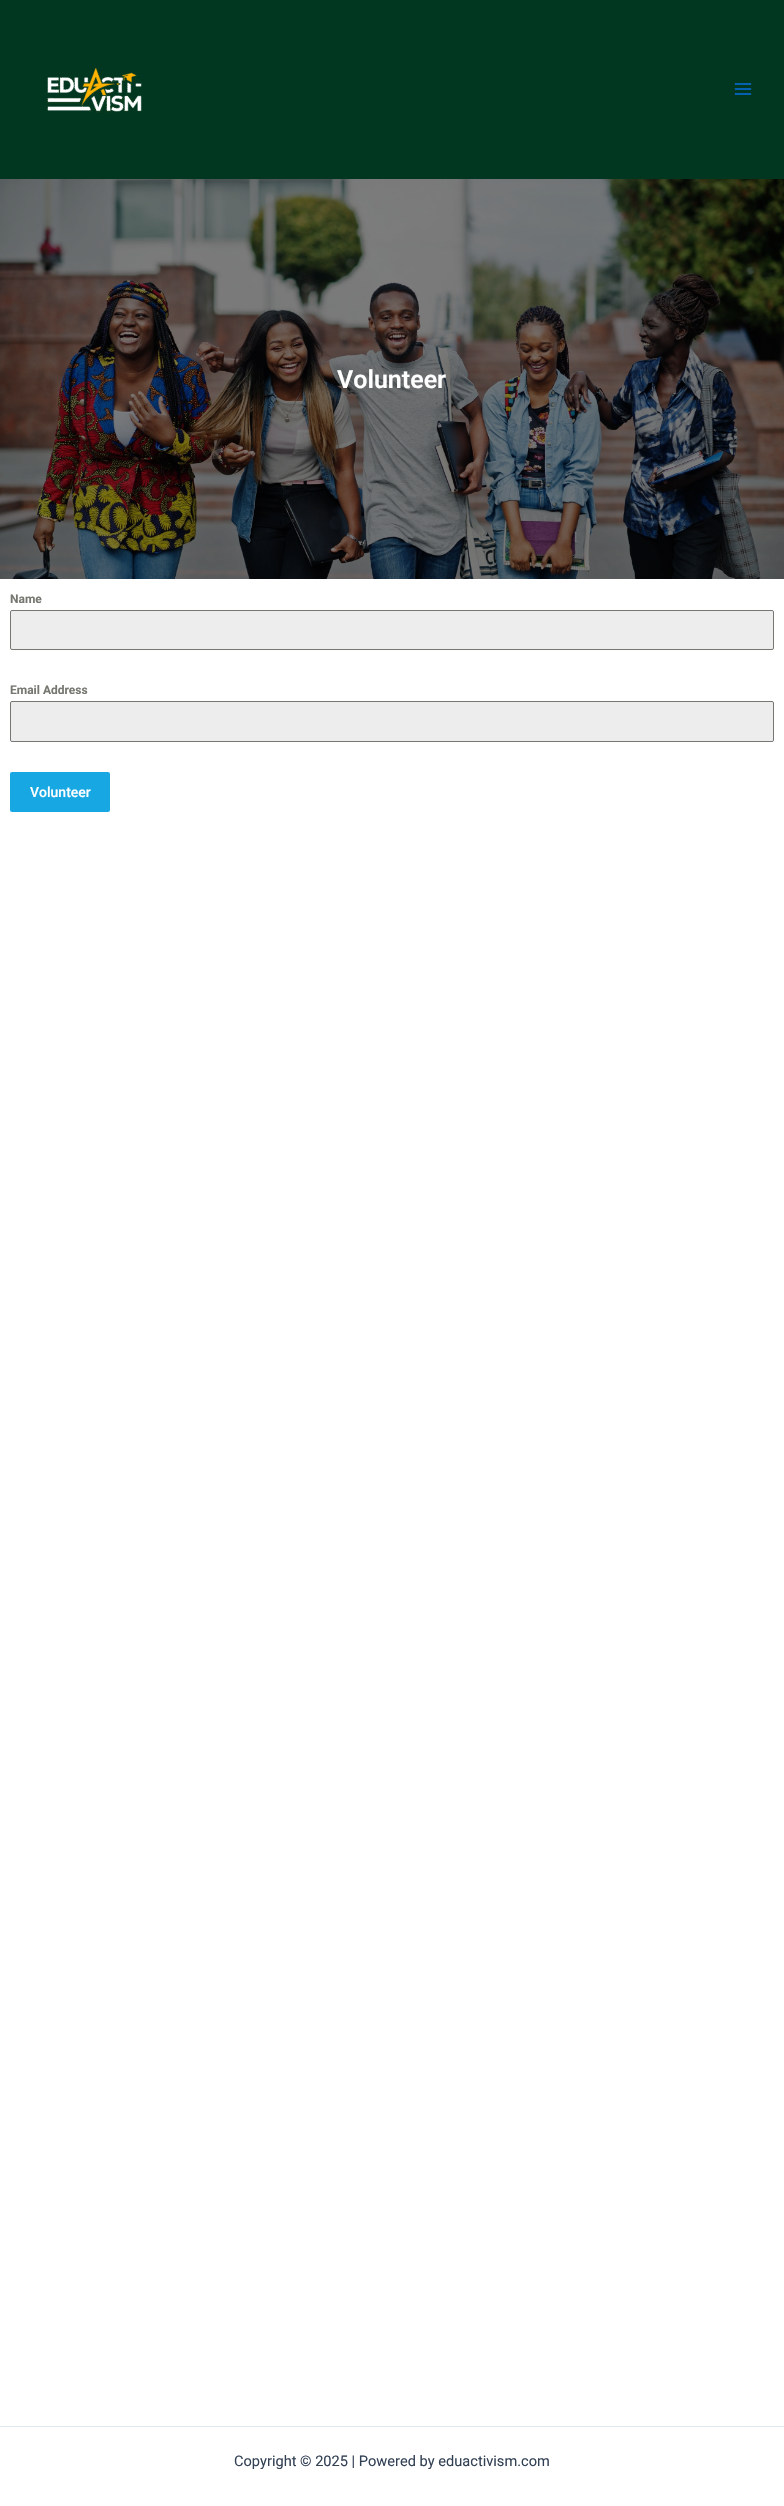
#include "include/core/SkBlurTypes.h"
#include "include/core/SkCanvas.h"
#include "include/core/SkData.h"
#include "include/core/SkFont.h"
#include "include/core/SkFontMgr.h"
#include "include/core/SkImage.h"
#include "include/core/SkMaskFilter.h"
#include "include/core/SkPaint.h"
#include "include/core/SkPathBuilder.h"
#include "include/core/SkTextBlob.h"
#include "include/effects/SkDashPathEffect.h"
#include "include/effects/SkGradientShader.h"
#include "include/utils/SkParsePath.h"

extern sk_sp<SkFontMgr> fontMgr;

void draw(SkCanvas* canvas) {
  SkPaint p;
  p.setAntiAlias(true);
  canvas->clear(SK_ColorWHITE);
  p.setColor(SkColorSetRGB(1, 55, 32));
  canvas->drawRect(SkRect::MakeLTRB(0, 0, 784, 179), p);
  canvas->drawImageRect(SkImages::DeferredFromEncodedData(SkData::MakeFromFileName("images/1.png")), SkRect::MakeLTRB(46, 68, 142, 114), SkSamplingOptions());
  canvas->drawImageRect(SkImages::DeferredFromEncodedData(SkData::MakeFromFileName("images/2.png")), SkRect::MakeLTRB(734, 83, 752, 95), SkSamplingOptions());
  canvas->drawImageRect(SkImages::DeferredFromEncodedData(SkData::MakeFromFileName("images/3.png")), SkRect::MakeLTRB(0, 179, 784, 579), SkSamplingOptions());
  p.setColor(SkColorSetRGB(237, 237, 237));
  canvas->drawRoundRect(SkRect::MakeLTRB(10.5f, 610.5f, 773.5f, 649.5f), 1.5f, 1.5f, p);
  p.setStyle(SkPaint::kStroke_Style);
  p.setStrokeWidth(1);
  p.setColor(SkColorSetRGB(119, 119, 113));
  canvas->drawRoundRect(SkRect::MakeLTRB(10.5f, 610.5f, 773.5f, 649.5f), 1.5f, 1.5f, p);
  p.setStyle(SkPaint::kFill_Style);
  p.setColor(SkColorSetRGB(237, 237, 237));
  canvas->drawRoundRect(SkRect::MakeLTRB(10.5f, 701.5f, 773.5f, 741.5f), 1.5f, 1.5f, p);
  p.setStyle(SkPaint::kStroke_Style);
  p.setColor(SkColorSetRGB(119, 119, 113));
  canvas->drawRoundRect(SkRect::MakeLTRB(10.5f, 701.5f, 773.5f, 741.5f), 1.5f, 1.5f, p);
  p.setStyle(SkPaint::kFill_Style);
  p.setColor(SkColorSetRGB(23, 168, 227));
  canvas->drawRoundRect(SkRect::MakeLTRB(10, 772, 110, 812), 2, 2, p);
  p.setColor(SkColorSetRGB(226, 232, 240));
  canvas->drawRect(SkRect::MakeLTRB(0, 2426, 784, 2427), p);
  SkFont font1(fontMgr->matchFamilyStyle("Roboto", SkFontStyle(600, SkFontStyle::kNormal_Width, SkFontStyle::kUpright_Slant)), 25);
  font1.setSubpixel(true);
  p.setColor(SK_ColorWHITE);
  canvas->drawString("Volunteer", 337, 388, font1, p);
  SkFont font2(fontMgr->matchFamilyStyle("Roboto", SkFontStyle::Bold()), 12);
  font2.setSubpixel(true);
  p.setColor(SkColorSetRGB(119, 119, 113));
  canvas->drawString("Name", 10, 603, font2, p);
  canvas->drawString("Email Address", 10, 694, font2, p);
  SkFont font3(fontMgr->matchFamilyStyle("Roboto", SkFontStyle(500, SkFontStyle::kNormal_Width, SkFontStyle::kUpright_Slant)), 14);
  font3.setSubpixel(true);
  p.setColor(SK_ColorWHITE);
  canvas->drawString("Volunteer", 30, 797, font3, p);
  SkFont font4(fontMgr->matchFamilyStyle("Roboto", SkFontStyle::Normal()), 14.6f);
  font4.setSubpixel(true);
  p.setColor(SkColorSetRGB(51, 65, 85));
  canvas->drawString("Copyright © 2025 | Powered by eduactivism.com", 234, 2466, font4, p);
}
